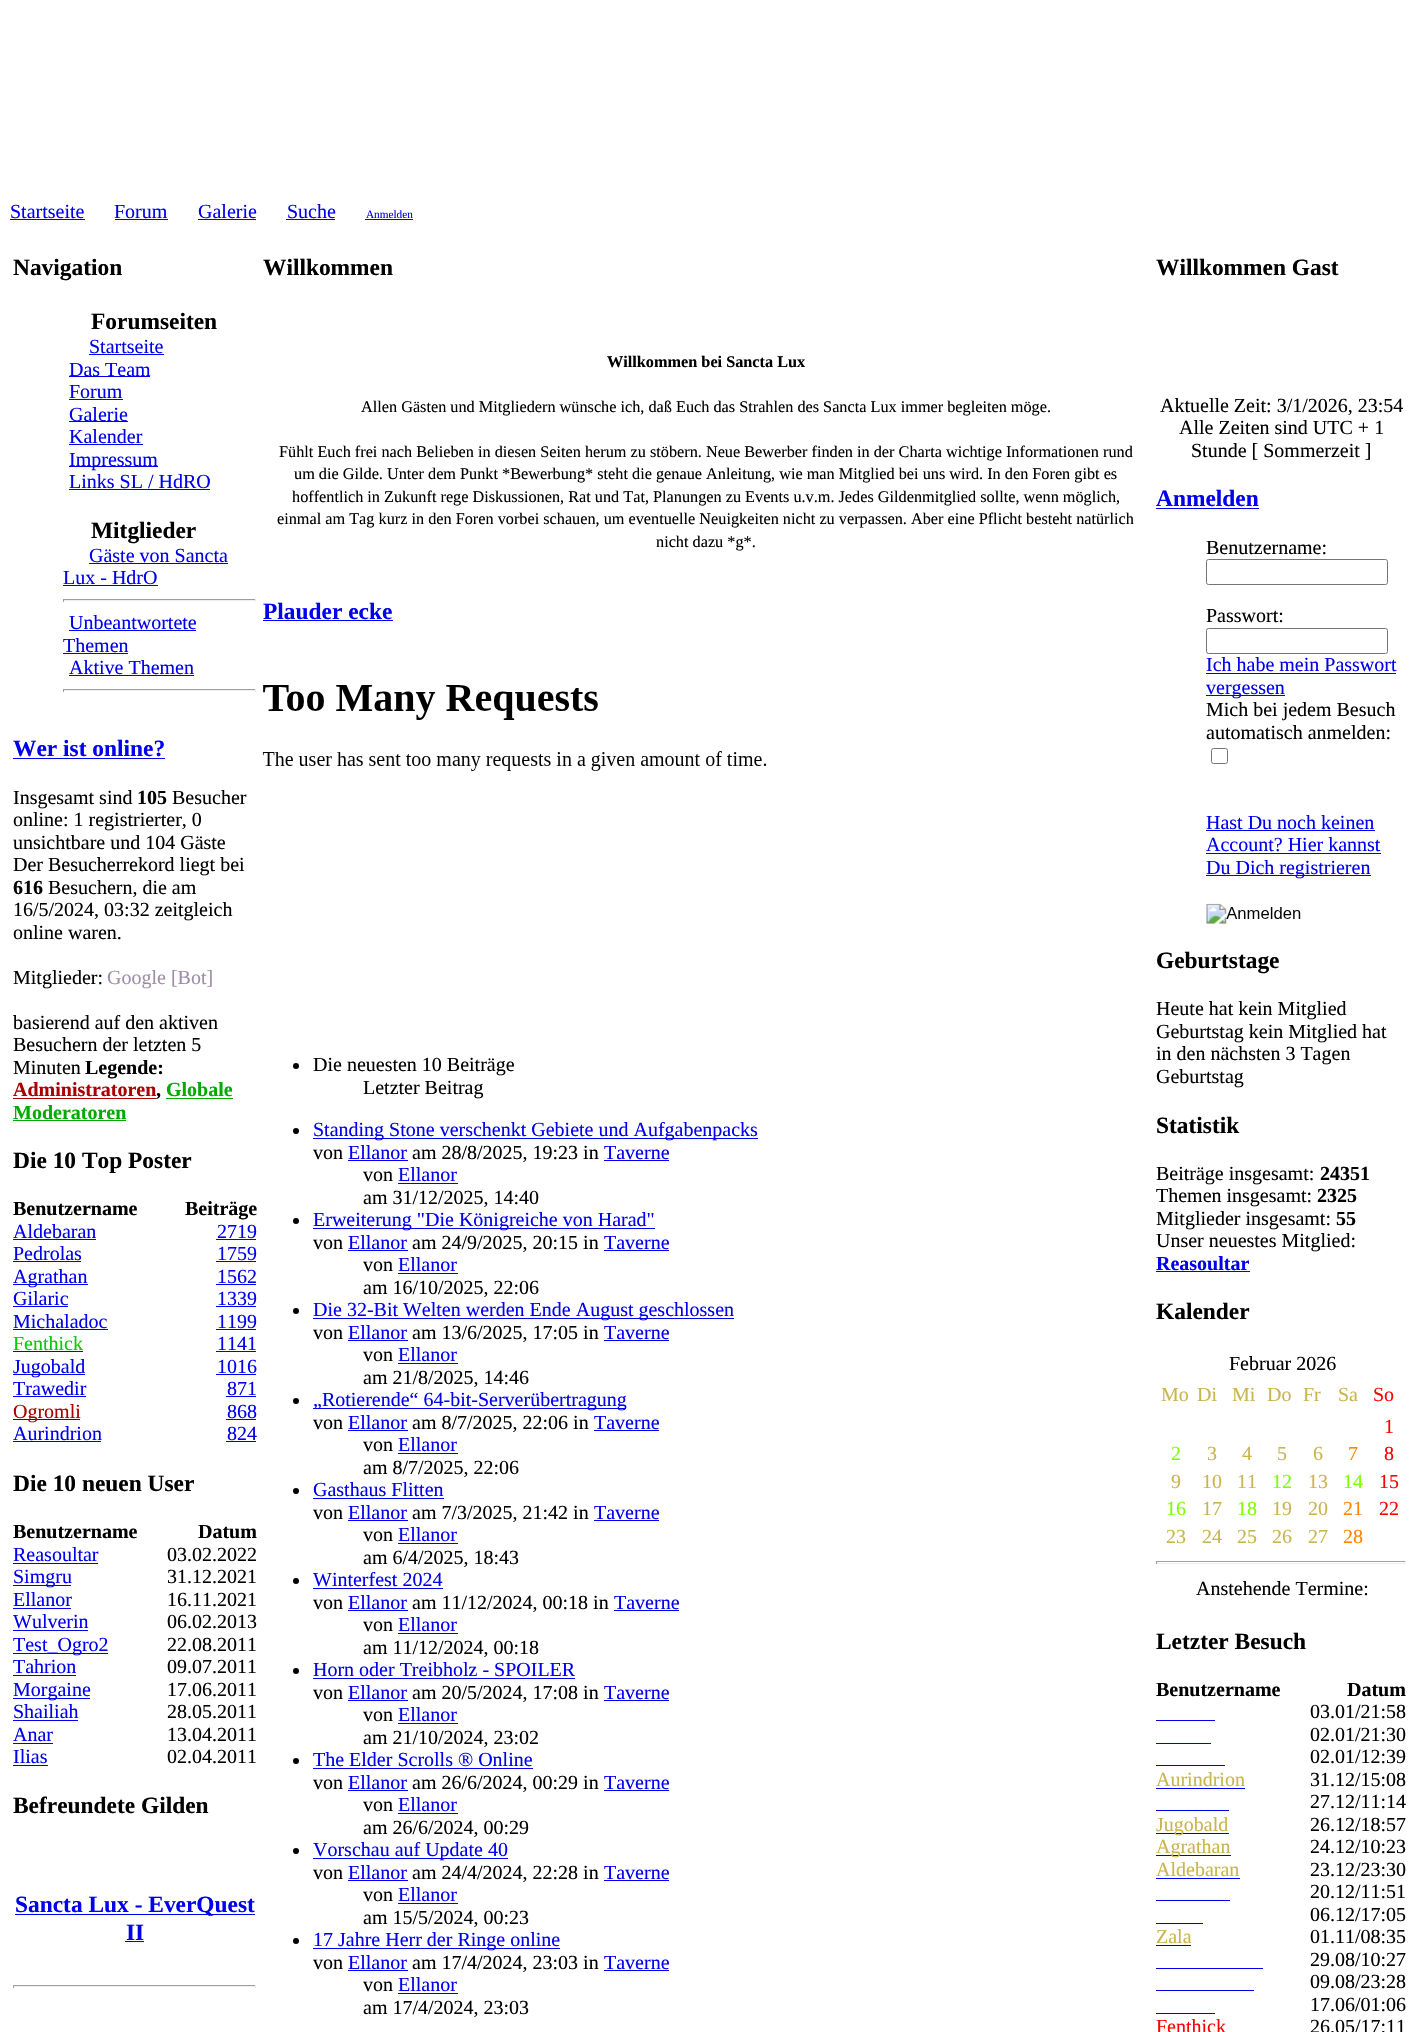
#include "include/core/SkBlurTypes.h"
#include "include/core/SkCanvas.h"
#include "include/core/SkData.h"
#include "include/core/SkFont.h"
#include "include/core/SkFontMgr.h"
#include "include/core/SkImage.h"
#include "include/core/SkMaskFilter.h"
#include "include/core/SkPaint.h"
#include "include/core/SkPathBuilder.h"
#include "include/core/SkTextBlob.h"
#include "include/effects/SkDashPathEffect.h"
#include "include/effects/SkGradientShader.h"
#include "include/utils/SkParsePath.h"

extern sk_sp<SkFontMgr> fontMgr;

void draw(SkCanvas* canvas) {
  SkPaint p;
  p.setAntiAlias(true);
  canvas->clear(SK_ColorWHITE);
  p.setColor(SkColorSetRGB(0, 0, 238));
  canvas->drawRect(SkRect::MakeLTRB(10, 219, 85, 220), p);
  canvas->drawRect(SkRect::MakeLTRB(115, 219, 168, 220), p);
  canvas->drawRect(SkRect::MakeLTRB(198, 219, 256, 220), p);
  canvas->drawRect(SkRect::MakeLTRB(286, 219, 335, 220), p);
  canvas->drawRect(SkRect::MakeLTRB(365, 219, 413, 220), p);
  canvas->drawRect(SkRect::MakeLTRB(89, 354, 164, 355), p);
  canvas->drawRect(SkRect::MakeLTRB(69, 376, 150, 377), p);
  canvas->drawRect(SkRect::MakeLTRB(69, 399, 123, 400), p);
  canvas->drawRect(SkRect::MakeLTRB(69, 421, 128, 422), p);
  canvas->drawRect(SkRect::MakeLTRB(69, 444, 143, 445), p);
  canvas->drawRect(SkRect::MakeLTRB(69, 466, 158, 467), p);
  canvas->drawRect(SkRect::MakeLTRB(69, 489, 210, 490), p);
  canvas->drawRect(SkRect::MakeLTRB(89, 563, 228, 564), p);
  canvas->drawRect(SkRect::MakeLTRB(63, 585, 158, 586), p);
  p.setColor(SkColorSetRGB(159, 159, 159));
  canvas->drawRect(SkRect::MakeLTRB(63, 599, 256, 600), p);
  p.setColor(SkColorSetRGB(238, 238, 238));
  canvas->drawRect(SkRect::MakeLTRB(255, 599, 256, 602), p);
  canvas->drawRect(SkRect::MakeLTRB(63, 600, 256, 601), p);
  p.setColor(SkColorSetRGB(159, 159, 159));
  canvas->drawRect(SkRect::MakeLTRB(63, 599, 64, 602), p);
  p.setColor(SkColorSetRGB(0, 0, 238));
  canvas->drawRect(SkRect::MakeLTRB(69, 630, 196, 631), p);
  canvas->drawRect(SkRect::MakeLTRB(63, 653, 128, 654), p);
  canvas->drawRect(SkRect::MakeLTRB(69, 675, 194, 676), p);
  p.setColor(SkColorSetRGB(159, 159, 159));
  canvas->drawRect(SkRect::MakeLTRB(63, 689, 256, 690), p);
  p.setColor(SkColorSetRGB(238, 238, 238));
  canvas->drawRect(SkRect::MakeLTRB(255, 689, 256, 692), p);
  canvas->drawRect(SkRect::MakeLTRB(63, 690, 256, 691), p);
  p.setColor(SkColorSetRGB(159, 159, 159));
  canvas->drawRect(SkRect::MakeLTRB(63, 689, 64, 692), p);
  p.setColor(SkColorSetRGB(0, 0, 238));
  canvas->drawRect(SkRect::MakeLTRB(13, 758, 165, 759), p);
  p.setColor(SkColorSetRGB(170, 0, 0));
  canvas->drawRect(SkRect::MakeLTRB(13, 1098, 156, 1099), p);
  p.setColor(SkColorSetRGB(0, 170, 0));
  canvas->drawRect(SkRect::MakeLTRB(166, 1098, 233, 1099), p);
  canvas->drawRect(SkRect::MakeLTRB(13, 1120, 126, 1121), p);
  p.setColor(SkColorSetRGB(0, 0, 238));
  canvas->drawRect(SkRect::MakeLTRB(13, 1239, 96, 1240), p);
  canvas->drawRect(SkRect::MakeLTRB(216, 1239, 256, 1240), p);
  canvas->drawRect(SkRect::MakeLTRB(13, 1261, 81, 1262), p);
  canvas->drawRect(SkRect::MakeLTRB(216, 1261, 256, 1262), p);
  canvas->drawRect(SkRect::MakeLTRB(13, 1284, 88, 1285), p);
  canvas->drawRect(SkRect::MakeLTRB(216, 1284, 256, 1285), p);
  canvas->drawRect(SkRect::MakeLTRB(13, 1306, 68, 1307), p);
  canvas->drawRect(SkRect::MakeLTRB(216, 1306, 256, 1307), p);
  canvas->drawRect(SkRect::MakeLTRB(13, 1329, 108, 1330), p);
  canvas->drawRect(SkRect::MakeLTRB(216, 1329, 256, 1330), p);
  canvas->drawRect(SkRect::MakeLTRB(13, 1351, 83, 1352), p);
  canvas->drawRect(SkRect::MakeLTRB(216, 1351, 256, 1352), p);
  canvas->drawRect(SkRect::MakeLTRB(13, 1374, 85, 1375), p);
  canvas->drawRect(SkRect::MakeLTRB(216, 1374, 256, 1375), p);
  canvas->drawRect(SkRect::MakeLTRB(13, 1396, 86, 1397), p);
  canvas->drawRect(SkRect::MakeLTRB(226, 1396, 256, 1397), p);
  canvas->drawRect(SkRect::MakeLTRB(13, 1419, 80, 1420), p);
  canvas->drawRect(SkRect::MakeLTRB(226, 1419, 256, 1420), p);
  canvas->drawRect(SkRect::MakeLTRB(13, 1441, 101, 1442), p);
  canvas->drawRect(SkRect::MakeLTRB(226, 1441, 256, 1442), p);
  canvas->drawRect(SkRect::MakeLTRB(13, 1563, 98, 1564), p);
  canvas->drawRect(SkRect::MakeLTRB(13, 1585, 71, 1586), p);
  canvas->drawRect(SkRect::MakeLTRB(13, 1608, 71, 1609), p);
  canvas->drawRect(SkRect::MakeLTRB(13, 1630, 88, 1631), p);
  canvas->drawRect(SkRect::MakeLTRB(13, 1653, 108, 1654), p);
  canvas->drawRect(SkRect::MakeLTRB(13, 1675, 76, 1676), p);
  canvas->drawRect(SkRect::MakeLTRB(13, 1698, 90, 1699), p);
  canvas->drawRect(SkRect::MakeLTRB(13, 1720, 78, 1721), p);
  canvas->drawRect(SkRect::MakeLTRB(13, 1743, 53, 1744), p);
  canvas->drawRect(SkRect::MakeLTRB(13, 1765, 48, 1766), p);
  canvas->drawRect(SkRect::MakeLTRB(15, 1914, 255, 1915), p);
  canvas->drawRect(SkRect::MakeLTRB(125, 1941, 144, 1942), p);
  p.setColor(SkColorSetRGB(159, 159, 159));
  canvas->drawRect(SkRect::MakeLTRB(13, 1985, 256, 1986), p);
  p.setColor(SkColorSetRGB(238, 238, 238));
  canvas->drawRect(SkRect::MakeLTRB(255, 1985, 256, 1988), p);
  canvas->drawRect(SkRect::MakeLTRB(13, 1986, 256, 1987), p);
  p.setColor(SkColorSetRGB(159, 159, 159));
  canvas->drawRect(SkRect::MakeLTRB(13, 1985, 14, 1988), p);
  p.setColor(SkColorSetRGB(0, 0, 238));
  canvas->drawRect(SkRect::MakeLTRB(263, 620, 393, 621), p);
  canvas->drawImageRect(SkImages::DeferredFromEncodedData(SkData::MakeFromFileName("images/1.png")), SkRect::MakeLTRB(262, 685, 767, 771), SkSamplingOptions());
  p.setColor(SK_ColorBLACK);
  canvas->drawCircle(296, 1066, 3, p);
  canvas->drawCircle(296, 1131, 3, p);
  p.setColor(SkColorSetRGB(0, 0, 238));
  canvas->drawRect(SkRect::MakeLTRB(313, 1138, 758, 1139), p);
  canvas->drawRect(SkRect::MakeLTRB(348, 1160, 408, 1161), p);
  canvas->drawRect(SkRect::MakeLTRB(604, 1160, 669, 1161), p);
  canvas->drawRect(SkRect::MakeLTRB(398, 1183, 458, 1184), p);
  p.setColor(SK_ColorBLACK);
  canvas->drawCircle(296, 1221, 3, p);
  p.setColor(SkColorSetRGB(0, 0, 238));
  canvas->drawRect(SkRect::MakeLTRB(313, 1228, 655, 1229), p);
  canvas->drawRect(SkRect::MakeLTRB(348, 1250, 408, 1251), p);
  canvas->drawRect(SkRect::MakeLTRB(604, 1250, 669, 1251), p);
  canvas->drawRect(SkRect::MakeLTRB(398, 1273, 458, 1274), p);
  p.setColor(SK_ColorBLACK);
  canvas->drawCircle(296, 1311, 3, p);
  p.setColor(SkColorSetRGB(0, 0, 238));
  canvas->drawRect(SkRect::MakeLTRB(313, 1318, 734, 1319), p);
  canvas->drawRect(SkRect::MakeLTRB(348, 1340, 408, 1341), p);
  canvas->drawRect(SkRect::MakeLTRB(604, 1340, 669, 1341), p);
  canvas->drawRect(SkRect::MakeLTRB(398, 1363, 458, 1364), p);
  p.setColor(SK_ColorBLACK);
  canvas->drawCircle(296, 1401, 3, p);
  p.setColor(SkColorSetRGB(0, 0, 238));
  canvas->drawRect(SkRect::MakeLTRB(313, 1408, 626, 1409), p);
  canvas->drawRect(SkRect::MakeLTRB(348, 1430, 408, 1431), p);
  canvas->drawRect(SkRect::MakeLTRB(594, 1430, 659, 1431), p);
  canvas->drawRect(SkRect::MakeLTRB(398, 1453, 458, 1454), p);
  p.setColor(SK_ColorBLACK);
  canvas->drawCircle(296, 1491, 3, p);
  p.setColor(SkColorSetRGB(0, 0, 238));
  canvas->drawRect(SkRect::MakeLTRB(313, 1498, 444, 1499), p);
  canvas->drawRect(SkRect::MakeLTRB(348, 1520, 408, 1521), p);
  canvas->drawRect(SkRect::MakeLTRB(594, 1520, 659, 1521), p);
  canvas->drawRect(SkRect::MakeLTRB(398, 1543, 458, 1544), p);
  p.setColor(SK_ColorBLACK);
  canvas->drawCircle(296, 1581, 3, p);
  p.setColor(SkColorSetRGB(0, 0, 238));
  canvas->drawRect(SkRect::MakeLTRB(313, 1588, 443, 1589), p);
  canvas->drawRect(SkRect::MakeLTRB(348, 1610, 408, 1611), p);
  canvas->drawRect(SkRect::MakeLTRB(614, 1610, 679, 1611), p);
  canvas->drawRect(SkRect::MakeLTRB(398, 1633, 458, 1634), p);
  p.setColor(SK_ColorBLACK);
  canvas->drawCircle(296, 1671, 3, p);
  p.setColor(SkColorSetRGB(0, 0, 238));
  canvas->drawRect(SkRect::MakeLTRB(313, 1678, 575, 1679), p);
  canvas->drawRect(SkRect::MakeLTRB(348, 1700, 408, 1701), p);
  canvas->drawRect(SkRect::MakeLTRB(604, 1700, 669, 1701), p);
  canvas->drawRect(SkRect::MakeLTRB(398, 1723, 458, 1724), p);
  p.setColor(SK_ColorBLACK);
  canvas->drawCircle(296, 1761, 3, p);
  p.setColor(SkColorSetRGB(0, 0, 238));
  canvas->drawRect(SkRect::MakeLTRB(313, 1768, 533, 1769), p);
  canvas->drawRect(SkRect::MakeLTRB(348, 1790, 408, 1791), p);
  canvas->drawRect(SkRect::MakeLTRB(604, 1790, 669, 1791), p);
  canvas->drawRect(SkRect::MakeLTRB(398, 1813, 458, 1814), p);
  p.setColor(SK_ColorBLACK);
  canvas->drawCircle(296, 1851, 3, p);
  p.setColor(SkColorSetRGB(0, 0, 238));
  canvas->drawRect(SkRect::MakeLTRB(313, 1858, 508, 1859), p);
  canvas->drawRect(SkRect::MakeLTRB(348, 1880, 408, 1881), p);
  canvas->drawRect(SkRect::MakeLTRB(604, 1880, 669, 1881), p);
  canvas->drawRect(SkRect::MakeLTRB(398, 1903, 458, 1904), p);
  p.setColor(SK_ColorBLACK);
  canvas->drawCircle(296, 1941, 3, p);
  p.setColor(SkColorSetRGB(0, 0, 238));
  canvas->drawRect(SkRect::MakeLTRB(313, 1948, 560, 1949), p);
  canvas->drawRect(SkRect::MakeLTRB(348, 1970, 408, 1971), p);
  canvas->drawRect(SkRect::MakeLTRB(604, 1970, 669, 1971), p);
  canvas->drawRect(SkRect::MakeLTRB(398, 1993, 458, 1994), p);
  canvas->drawRect(SkRect::MakeLTRB(1156, 508, 1259, 509), p);
  p.setStyle(SkPaint::kStroke_Style);
  p.setStrokeWidth(1);
  p.setColor(SkColorSetRGB(118, 118, 118));
  canvas->drawRoundRect(SkRect::MakeLTRB(1206.5f, 559.5f, 1387.5f, 584.5f), 2, 2, p);
  canvas->drawRoundRect(SkRect::MakeLTRB(1206.5f, 628.5f, 1387.5f, 653.5f), 2, 2, p);
  p.setStyle(SkPaint::kFill_Style);
  p.setColor(SkColorSetRGB(0, 0, 238));
  canvas->drawRect(SkRect::MakeLTRB(1206, 673, 1396, 674), p);
  canvas->drawRect(SkRect::MakeLTRB(1206, 695, 1285, 696), p);
  p.setStyle(SkPaint::kStroke_Style);
  p.setColor(SkColorSetRGB(118, 118, 118));
  canvas->drawRoundRect(SkRect::MakeLTRB(1211.5f, 748.5f, 1227.5f, 763.5f), 2, 2, p);
  p.setStyle(SkPaint::kFill_Style);
  p.setColor(SkColorSetRGB(0, 0, 238));
  canvas->drawRect(SkRect::MakeLTRB(1206, 830, 1375, 831), p);
  canvas->drawRect(SkRect::MakeLTRB(1206, 853, 1381, 854), p);
  canvas->drawRect(SkRect::MakeLTRB(1206, 875, 1371, 876), p);
  canvas->drawImageRect(SkImages::DeferredFromEncodedData(SkData::MakeFromFileName("images/2.png")), SkRect::MakeLTRB(1206, 903, 1301, 924), SkSamplingOptions());
  canvas->drawRect(SkRect::MakeLTRB(1156, 1271, 1250, 1272), p);
  p.setColor(SkColorSetRGB(159, 159, 159));
  canvas->drawRect(SkRect::MakeLTRB(1156, 1561, 1406, 1562), p);
  p.setColor(SkColorSetRGB(238, 238, 238));
  canvas->drawRect(SkRect::MakeLTRB(1405, 1561, 1406, 1564), p);
  canvas->drawRect(SkRect::MakeLTRB(1156, 1563, 1406, 1564), p);
  p.setColor(SkColorSetRGB(159, 159, 159));
  canvas->drawRect(SkRect::MakeLTRB(1156, 1561, 1157, 1564), p);
  p.setColor(SkColorSetRGB(0, 0, 238));
  canvas->drawRect(SkRect::MakeLTRB(1156, 1720, 1215, 1721), p);
  canvas->drawRect(SkRect::MakeLTRB(1156, 1743, 1211, 1744), p);
  canvas->drawRect(SkRect::MakeLTRB(1156, 1765, 1225, 1766), p);
  canvas->drawRect(SkRect::MakeLTRB(1156, 1788, 1245, 1789), p);
  canvas->drawRect(SkRect::MakeLTRB(1156, 1810, 1229, 1811), p);
  canvas->drawRect(SkRect::MakeLTRB(1156, 1833, 1229, 1834), p);
  canvas->drawRect(SkRect::MakeLTRB(1156, 1855, 1231, 1856), p);
  canvas->drawRect(SkRect::MakeLTRB(1156, 1878, 1240, 1879), p);
  canvas->drawRect(SkRect::MakeLTRB(1156, 1900, 1230, 1901), p);
  canvas->drawRect(SkRect::MakeLTRB(1156, 1923, 1203, 1924), p);
  canvas->drawRect(SkRect::MakeLTRB(1156, 1945, 1191, 1946), p);
  canvas->drawRect(SkRect::MakeLTRB(1156, 1968, 1263, 1969), p);
  canvas->drawRect(SkRect::MakeLTRB(1156, 1990, 1254, 1991), p);
  canvas->drawRect(SkRect::MakeLTRB(1156, 2013, 1215, 2014), p);
  SkFont font1(fontMgr->matchFamilyStyle("Liberation Serif", SkFontStyle::Normal()), 20);
  font1.setSubpixel(true);
  canvas->drawString("Startseite", 10, 218, font1, p);
  canvas->drawString("Forum", 114, 218, font1, p);
  canvas->drawString("Galerie", 198, 218, font1, p);
  canvas->drawString("Suche", 287, 218, font1, p);
  SkFont font2(fontMgr->matchFamilyStyle("Liberation Serif", SkFontStyle::Normal()), 11.25f);
  font2.setSubpixel(true);
  canvas->drawString("Anmelden", 366, 218, font2, p);
  SkFont font3(fontMgr->matchFamilyStyle("Liberation Serif", SkFontStyle::Bold()), 23.4f);
  font3.setSubpixel(true);
  p.setColor(SK_ColorBLACK);
  canvas->drawString("Navigation", 13, 275, font3, p);
  canvas->drawString("Forumseiten", 91, 329, font3, p);
  p.setColor(SkColorSetRGB(0, 0, 238));
  canvas->drawString("Startseite", 89, 353, font1, p);
  canvas->drawString("Das Team", 69, 376, font1, p);
  canvas->drawString("Forum", 69, 398, font1, p);
  canvas->drawString("Galerie", 69, 421, font1, p);
  canvas->drawString("Kalender", 69, 443, font1, p);
  canvas->drawString("Impressum", 69, 466, font1, p);
  canvas->drawString("Links SL / HdRO", 69, 488, font1, p);
  p.setColor(SK_ColorBLACK);
  canvas->drawString("Mitglieder", 91, 538, font3, p);
  p.setColor(SkColorSetRGB(0, 0, 238));
  canvas->drawString("Gäste von Sancta", 89, 562, font1, p);
  canvas->drawString("Lux - HdrO", 63, 584, font1, p);
  canvas->drawString("Unbeantwortete", 69, 629, font1, p);
  canvas->drawString("Themen", 63, 652, font1, p);
  canvas->drawString("Aktive Themen", 69, 674, font1, p);
  canvas->drawString("Wer ist online?", 13, 756, font3, p);
  p.setColor(SK_ColorBLACK);
  canvas->drawString("Insgesamt sind", 13, 804, font1, p);
  SkFont font4(fontMgr->matchFamilyStyle("Liberation Serif", SkFontStyle::Bold()), 20);
  font4.setSubpixel(true);
  canvas->drawString("105", 137, 804, font4, p);
  canvas->drawString("Besucher", 172, 804, font1, p);
  canvas->drawString("online: 1 registrierter, 0", 13, 826, font1, p);
  canvas->drawString("unsichtbare und 104 Gäste", 13, 849, font1, p);
  canvas->drawString("Der Besucherrekord liegt bei", 13, 871, font1, p);
  canvas->drawString("616", 13, 894, font4, p);
  canvas->drawString("Besuchern, die am", 48, 894, font1, p);
  canvas->drawString("16/5/2024, 03:32 zeitgleich", 13, 916, font1, p);
  canvas->drawString("online waren.", 13, 939, font1, p);
  canvas->drawString("Mitglieder:", 13, 984, font1, p);
  p.setColor(SkColorSetRGB(158, 141, 167));
  canvas->drawString("Google [Bot]", 107, 984, font1, p);
  p.setColor(SK_ColorBLACK);
  canvas->drawString("basierend auf den aktiven", 13, 1029, font1, p);
  canvas->drawString("Besuchern der letzten 5", 13, 1051, font1, p);
  canvas->drawString("Minuten", 13, 1074, font1, p);
  canvas->drawString("Legende:", 85, 1074, font4, p);
  p.setColor(SkColorSetRGB(170, 0, 0));
  canvas->drawString("Administratoren", 13, 1096, font4, p);
  p.setColor(SK_ColorBLACK);
  canvas->drawString(",", 156, 1096, font4, p);
  p.setColor(SkColorSetRGB(0, 170, 0));
  canvas->drawString("Globale", 166, 1096, font4, p);
  canvas->drawString("Moderatoren", 13, 1119, font4, p);
  p.setColor(SK_ColorBLACK);
  canvas->drawString("Die 10 Top Poster", 13, 1168, font3, p);
  canvas->drawString("Benutzername", 13, 1215, font4, p);
  canvas->drawString("Beiträge", 185, 1215, font4, p);
  p.setColor(SkColorSetRGB(0, 0, 238));
  canvas->drawString("Aldebaran", 13, 1238, font1, p);
  canvas->drawString("2719", 217, 1238, font1, p);
  canvas->drawString("Pedrolas", 13, 1260, font1, p);
  canvas->drawString("1759", 217, 1260, font1, p);
  canvas->drawString("Agrathan", 13, 1283, font1, p);
  canvas->drawString("1562", 217, 1283, font1, p);
  canvas->drawString("Gilaric", 13, 1305, font1, p);
  canvas->drawString("1339", 217, 1305, font1, p);
  canvas->drawString("Michaladoc", 13, 1328, font1, p);
  canvas->drawString("1199", 217, 1328, font1, p);
  p.setColor(SkColorSetRGB(0, 204, 0));
  canvas->drawString("Fenthick", 13, 1350, font1, p);
  p.setColor(SkColorSetRGB(0, 0, 238));
  canvas->drawString("1141", 217, 1350, font1, p);
  canvas->drawString("Jugobald", 13, 1373, font1, p);
  canvas->drawString("1016", 217, 1373, font1, p);
  canvas->drawString("Trawedir", 13, 1395, font1, p);
  canvas->drawString("871", 227, 1395, font1, p);
  p.setColor(SkColorSetRGB(170, 0, 0));
  canvas->drawString("Ogromli", 13, 1418, font1, p);
  p.setColor(SkColorSetRGB(0, 0, 238));
  canvas->drawString("868", 227, 1418, font1, p);
  canvas->drawString("Aurindrion", 13, 1440, font1, p);
  canvas->drawString("824", 227, 1440, font1, p);
  p.setColor(SK_ColorBLACK);
  canvas->drawString("Die 10 neuen User", 13, 1491, font3, p);
  canvas->drawString("Benutzername", 13, 1538, font4, p);
  canvas->drawString("Datum", 198, 1538, font4, p);
  p.setColor(SkColorSetRGB(0, 0, 238));
  canvas->drawString("Reasoultar", 13, 1561, font1, p);
  p.setColor(SK_ColorBLACK);
  canvas->drawString("03.02.2022", 167, 1561, font1, p);
  p.setColor(SkColorSetRGB(0, 0, 238));
  canvas->drawString("Simgru", 13, 1583, font1, p);
  p.setColor(SK_ColorBLACK);
  canvas->drawString("31.12.2021", 167, 1583, font1, p);
  p.setColor(SkColorSetRGB(0, 0, 238));
  canvas->drawString("Ellanor", 13, 1606, font1, p);
  p.setColor(SK_ColorBLACK);
  canvas->drawString("16.11.2021", 167, 1606, font1, p);
  p.setColor(SkColorSetRGB(0, 0, 238));
  canvas->drawString("Wulverin", 13, 1628, font1, p);
  p.setColor(SK_ColorBLACK);
  canvas->drawString("06.02.2013", 167, 1628, font1, p);
  p.setColor(SkColorSetRGB(0, 0, 238));
  canvas->drawString("Test_Ogro2", 13, 1651, font1, p);
  p.setColor(SK_ColorBLACK);
  canvas->drawString("22.08.2011", 167, 1651, font1, p);
  p.setColor(SkColorSetRGB(0, 0, 238));
  canvas->drawString("Tahrion", 13, 1673, font1, p);
  p.setColor(SK_ColorBLACK);
  canvas->drawString("09.07.2011", 167, 1673, font1, p);
  p.setColor(SkColorSetRGB(0, 0, 238));
  canvas->drawString("Morgaine", 13, 1696, font1, p);
  p.setColor(SK_ColorBLACK);
  canvas->drawString("17.06.2011", 167, 1696, font1, p);
  p.setColor(SkColorSetRGB(0, 0, 238));
  canvas->drawString("Shailiah", 13, 1718, font1, p);
  p.setColor(SK_ColorBLACK);
  canvas->drawString("28.05.2011", 167, 1718, font1, p);
  p.setColor(SkColorSetRGB(0, 0, 238));
  canvas->drawString("Anar", 13, 1741, font1, p);
  p.setColor(SK_ColorBLACK);
  canvas->drawString("13.04.2011", 167, 1741, font1, p);
  p.setColor(SkColorSetRGB(0, 0, 238));
  canvas->drawString("Ilias", 13, 1763, font1, p);
  p.setColor(SK_ColorBLACK);
  canvas->drawString("02.04.2011", 167, 1763, font1, p);
  canvas->drawString("Befreundete Gilden", 13, 1813, font3, p);
  p.setColor(SkColorSetRGB(0, 0, 238));
  canvas->drawString("Sancta Lux - EverQuest", 15, 1912, font3, p);
  canvas->drawString("II", 126, 1940, font3, p);
  p.setColor(SK_ColorBLACK);
  canvas->drawString("Willkommen", 263, 275, font3, p);
  SkFont font5(fontMgr->matchFamilyStyle("Liberation Serif", SkFontStyle::Bold()), 16.25f);
  font5.setSubpixel(true);
  canvas->drawString("Willkommen bei Sancta Lux", 607, 367, font5, p);
  SkFont font6(fontMgr->matchFamilyStyle("Liberation Serif", SkFontStyle::Normal()), 16.25f);
  font6.setSubpixel(true);
  canvas->drawString("Allen Gästen und Mitgliedern wünsche ich, daß Euch das Strahlen des Sancta Lux immer begleiten möge.", 361, 412, font6, p);
  canvas->drawString("Fühlt Euch frei nach Belieben in diesen Seiten herum zu stöbern. Neue Bewerber finden in der Charta wichtige Informationen rund", 279, 457, font6, p);
  canvas->drawString("um die Gilde. Unter dem Punkt *Bewerbung* steht die genaue Anleitung, wie man Mitglied bei uns wird. In den Foren gibt es", 294, 479, font6, p);
  canvas->drawString("hoffentlich in Zukunft rege Diskussionen, Rat und Tat, Planungen zu Events u.v.m. Jedes Gildenmitglied sollte, wenn möglich,", 292, 502, font6, p);
  canvas->drawString("einmal am Tag kurz in den Foren vorbei schauen, um eventuelle Neuigkeiten nicht zu verpassen. Aber eine Pflicht besteht natürlich", 277, 524, font6, p);
  canvas->drawString("nicht dazu *g*.", 656, 547, font6, p);
  p.setColor(SkColorSetRGB(0, 0, 238));
  canvas->drawString("Plauder ecke", 263, 619, font3, p);
  p.setColor(SK_ColorBLACK);
  canvas->drawString("Die neuesten 10 Beiträge", 313, 1071, font1, p);
  canvas->drawString("Letzter Beitrag", 363, 1094, font1, p);
  p.setColor(SkColorSetRGB(0, 0, 238));
  canvas->drawString("Standing Stone verschenkt Gebiete und Aufgabenpacks", 313, 1136, font1, p);
  p.setColor(SK_ColorBLACK);
  canvas->drawString("von", 313, 1159, font1, p);
  p.setColor(SkColorSetRGB(0, 0, 238));
  canvas->drawString("Ellanor", 348, 1159, font1, p);
  p.setColor(SK_ColorBLACK);
  canvas->drawString("am 28/8/2025, 19:23 in", 412, 1159, font1, p);
  p.setColor(SkColorSetRGB(0, 0, 238));
  canvas->drawString("Taverne", 604, 1159, font1, p);
  p.setColor(SK_ColorBLACK);
  canvas->drawString("von", 363, 1181, font1, p);
  p.setColor(SkColorSetRGB(0, 0, 238));
  canvas->drawString("Ellanor", 398, 1181, font1, p);
  p.setColor(SK_ColorBLACK);
  canvas->drawString("am 31/12/2025, 14:40", 363, 1204, font1, p);
  p.setColor(SkColorSetRGB(0, 0, 238));
  canvas->drawString("Erweiterung \"Die Königreiche von Harad\"", 313, 1226, font1, p);
  p.setColor(SK_ColorBLACK);
  canvas->drawString("von", 313, 1249, font1, p);
  p.setColor(SkColorSetRGB(0, 0, 238));
  canvas->drawString("Ellanor", 348, 1249, font1, p);
  p.setColor(SK_ColorBLACK);
  canvas->drawString("am 24/9/2025, 20:15 in", 412, 1249, font1, p);
  p.setColor(SkColorSetRGB(0, 0, 238));
  canvas->drawString("Taverne", 604, 1249, font1, p);
  p.setColor(SK_ColorBLACK);
  canvas->drawString("von", 363, 1271, font1, p);
  p.setColor(SkColorSetRGB(0, 0, 238));
  canvas->drawString("Ellanor", 398, 1271, font1, p);
  p.setColor(SK_ColorBLACK);
  canvas->drawString("am 16/10/2025, 22:06", 363, 1294, font1, p);
  p.setColor(SkColorSetRGB(0, 0, 238));
  canvas->drawString("Die 32-Bit Welten werden Ende August geschlossen", 313, 1316, font1, p);
  p.setColor(SK_ColorBLACK);
  canvas->drawString("von", 313, 1339, font1, p);
  p.setColor(SkColorSetRGB(0, 0, 238));
  canvas->drawString("Ellanor", 348, 1339, font1, p);
  p.setColor(SK_ColorBLACK);
  canvas->drawString("am 13/6/2025, 17:05 in", 412, 1339, font1, p);
  p.setColor(SkColorSetRGB(0, 0, 238));
  canvas->drawString("Taverne", 604, 1339, font1, p);
  p.setColor(SK_ColorBLACK);
  canvas->drawString("von", 363, 1361, font1, p);
  p.setColor(SkColorSetRGB(0, 0, 238));
  canvas->drawString("Ellanor", 398, 1361, font1, p);
  p.setColor(SK_ColorBLACK);
  canvas->drawString("am 21/8/2025, 14:46", 363, 1384, font1, p);
  p.setColor(SkColorSetRGB(0, 0, 238));
  canvas->drawString("„Rotierende“ 64-bit-Serverübertragung", 313, 1406, font1, p);
  p.setColor(SK_ColorBLACK);
  canvas->drawString("von", 313, 1429, font1, p);
  p.setColor(SkColorSetRGB(0, 0, 238));
  canvas->drawString("Ellanor", 348, 1429, font1, p);
  p.setColor(SK_ColorBLACK);
  canvas->drawString("am 8/7/2025, 22:06 in", 412, 1429, font1, p);
  p.setColor(SkColorSetRGB(0, 0, 238));
  canvas->drawString("Taverne", 594, 1429, font1, p);
  p.setColor(SK_ColorBLACK);
  canvas->drawString("von", 363, 1451, font1, p);
  p.setColor(SkColorSetRGB(0, 0, 238));
  canvas->drawString("Ellanor", 398, 1451, font1, p);
  p.setColor(SK_ColorBLACK);
  canvas->drawString("am 8/7/2025, 22:06", 363, 1474, font1, p);
  p.setColor(SkColorSetRGB(0, 0, 238));
  canvas->drawString("Gasthaus Flitten", 313, 1496, font1, p);
  p.setColor(SK_ColorBLACK);
  canvas->drawString("von", 313, 1519, font1, p);
  p.setColor(SkColorSetRGB(0, 0, 238));
  canvas->drawString("Ellanor", 348, 1519, font1, p);
  p.setColor(SK_ColorBLACK);
  canvas->drawString("am 7/3/2025, 21:42 in", 412, 1519, font1, p);
  p.setColor(SkColorSetRGB(0, 0, 238));
  canvas->drawString("Taverne", 594, 1519, font1, p);
  p.setColor(SK_ColorBLACK);
  canvas->drawString("von", 363, 1541, font1, p);
  p.setColor(SkColorSetRGB(0, 0, 238));
  canvas->drawString("Ellanor", 398, 1541, font1, p);
  p.setColor(SK_ColorBLACK);
  canvas->drawString("am 6/4/2025, 18:43", 363, 1564, font1, p);
  p.setColor(SkColorSetRGB(0, 0, 238));
  canvas->drawString("Winterfest 2024", 313, 1586, font1, p);
  p.setColor(SK_ColorBLACK);
  canvas->drawString("von", 313, 1609, font1, p);
  p.setColor(SkColorSetRGB(0, 0, 238));
  canvas->drawString("Ellanor", 348, 1609, font1, p);
  p.setColor(SK_ColorBLACK);
  canvas->drawString("am 11/12/2024, 00:18 in", 412, 1609, font1, p);
  p.setColor(SkColorSetRGB(0, 0, 238));
  canvas->drawString("Taverne", 614, 1609, font1, p);
  p.setColor(SK_ColorBLACK);
  canvas->drawString("von", 363, 1631, font1, p);
  p.setColor(SkColorSetRGB(0, 0, 238));
  canvas->drawString("Ellanor", 398, 1631, font1, p);
  p.setColor(SK_ColorBLACK);
  canvas->drawString("am 11/12/2024, 00:18", 363, 1654, font1, p);
  p.setColor(SkColorSetRGB(0, 0, 238));
  canvas->drawString("Horn oder Treibholz - SPOILER", 313, 1676, font1, p);
  p.setColor(SK_ColorBLACK);
  canvas->drawString("von", 313, 1699, font1, p);
  p.setColor(SkColorSetRGB(0, 0, 238));
  canvas->drawString("Ellanor", 348, 1699, font1, p);
  p.setColor(SK_ColorBLACK);
  canvas->drawString("am 20/5/2024, 17:08 in", 412, 1699, font1, p);
  p.setColor(SkColorSetRGB(0, 0, 238));
  canvas->drawString("Taverne", 604, 1699, font1, p);
  p.setColor(SK_ColorBLACK);
  canvas->drawString("von", 363, 1721, font1, p);
  p.setColor(SkColorSetRGB(0, 0, 238));
  canvas->drawString("Ellanor", 398, 1721, font1, p);
  p.setColor(SK_ColorBLACK);
  canvas->drawString("am 21/10/2024, 23:02", 363, 1744, font1, p);
  p.setColor(SkColorSetRGB(0, 0, 238));
  canvas->drawString("The Elder Scrolls ® Online", 313, 1766, font1, p);
  p.setColor(SK_ColorBLACK);
  canvas->drawString("von", 313, 1789, font1, p);
  p.setColor(SkColorSetRGB(0, 0, 238));
  canvas->drawString("Ellanor", 348, 1789, font1, p);
  p.setColor(SK_ColorBLACK);
  canvas->drawString("am 26/6/2024, 00:29 in", 412, 1789, font1, p);
  p.setColor(SkColorSetRGB(0, 0, 238));
  canvas->drawString("Taverne", 604, 1789, font1, p);
  p.setColor(SK_ColorBLACK);
  canvas->drawString("von", 363, 1811, font1, p);
  p.setColor(SkColorSetRGB(0, 0, 238));
  canvas->drawString("Ellanor", 398, 1811, font1, p);
  p.setColor(SK_ColorBLACK);
  canvas->drawString("am 26/6/2024, 00:29", 363, 1834, font1, p);
  p.setColor(SkColorSetRGB(0, 0, 238));
  canvas->drawString("Vorschau auf Update 40", 313, 1856, font1, p);
  p.setColor(SK_ColorBLACK);
  canvas->drawString("von", 313, 1879, font1, p);
  p.setColor(SkColorSetRGB(0, 0, 238));
  canvas->drawString("Ellanor", 348, 1879, font1, p);
  p.setColor(SK_ColorBLACK);
  canvas->drawString("am 24/4/2024, 22:28 in", 412, 1879, font1, p);
  p.setColor(SkColorSetRGB(0, 0, 238));
  canvas->drawString("Taverne", 604, 1879, font1, p);
  p.setColor(SK_ColorBLACK);
  canvas->drawString("von", 363, 1901, font1, p);
  p.setColor(SkColorSetRGB(0, 0, 238));
  canvas->drawString("Ellanor", 398, 1901, font1, p);
  p.setColor(SK_ColorBLACK);
  canvas->drawString("am 15/5/2024, 00:23", 363, 1924, font1, p);
  p.setColor(SkColorSetRGB(0, 0, 238));
  canvas->drawString("17 Jahre Herr der Ringe online", 313, 1946, font1, p);
  p.setColor(SK_ColorBLACK);
  canvas->drawString("von", 313, 1969, font1, p);
  p.setColor(SkColorSetRGB(0, 0, 238));
  canvas->drawString("Ellanor", 348, 1969, font1, p);
  p.setColor(SK_ColorBLACK);
  canvas->drawString("am 17/4/2024, 23:03 in", 412, 1969, font1, p);
  p.setColor(SkColorSetRGB(0, 0, 238));
  canvas->drawString("Taverne", 604, 1969, font1, p);
  p.setColor(SK_ColorBLACK);
  canvas->drawString("von", 363, 1991, font1, p);
  p.setColor(SkColorSetRGB(0, 0, 238));
  canvas->drawString("Ellanor", 398, 1991, font1, p);
  p.setColor(SK_ColorBLACK);
  canvas->drawString("am 17/4/2024, 23:03", 363, 2014, font1, p);
  canvas->drawString("Willkommen Gast", 1156, 275, font3, p);
  canvas->drawString("Aktuelle Zeit: 3/1/2026, 23:54", 1160, 412, font1, p);
  canvas->drawString("Alle Zeiten sind UTC + 1", 1179, 434, font1, p);
  canvas->drawString("Stunde [ Sommerzeit ]", 1191, 457, font1, p);
  p.setColor(SkColorSetRGB(0, 0, 238));
  canvas->drawString("Anmelden", 1156, 506, font3, p);
  p.setColor(SK_ColorBLACK);
  canvas->drawString("Benutzername:", 1206, 554, font1, p);
  canvas->drawString("Passwort:", 1206, 622, font1, p);
  p.setColor(SkColorSetRGB(0, 0, 238));
  canvas->drawString("Ich habe mein Passwort", 1206, 671, font1, p);
  canvas->drawString("vergessen", 1206, 694, font1, p);
  p.setColor(SK_ColorBLACK);
  canvas->drawString("Mich bei jedem Besuch", 1206, 716, font1, p);
  canvas->drawString("automatisch anmelden:", 1206, 739, font1, p);
  p.setColor(SkColorSetRGB(0, 0, 238));
  canvas->drawString("Hast Du noch keinen", 1206, 829, font1, p);
  canvas->drawString("Account? Hier kannst", 1206, 851, font1, p);
  canvas->drawString("Du Dich registrieren", 1206, 874, font1, p);
  p.setColor(SK_ColorBLACK);
  canvas->drawString("Geburtstage", 1156, 968, font3, p);
  canvas->drawString("Heute hat kein Mitglied", 1156, 1015, font1, p);
  canvas->drawString("Geburtstag kein Mitglied hat", 1156, 1038, font1, p);
  canvas->drawString("in den nächsten 3 Tagen", 1156, 1060, font1, p);
  canvas->drawString("Geburtstag", 1156, 1083, font1, p);
  canvas->drawString("Statistik", 1156, 1133, font3, p);
  canvas->drawString("Beiträge insgesamt:", 1156, 1180, font1, p);
  canvas->drawString("24351", 1320, 1180, font4, p);
  canvas->drawString("Themen insgesamt:", 1156, 1202, font1, p);
  canvas->drawString("2325", 1317, 1202, font4, p);
  canvas->drawString("Mitglieder insgesamt:", 1156, 1225, font1, p);
  canvas->drawString("55", 1336, 1225, font4, p);
  canvas->drawString("Unser neuestes Mitglied:", 1156, 1247, font1, p);
  p.setColor(SkColorSetRGB(0, 0, 238));
  canvas->drawString("Reasoultar", 1156, 1270, font4, p);
  p.setColor(SK_ColorBLACK);
  canvas->drawString("Kalender", 1156, 1319, font3, p);
  canvas->drawString("Februar 2026", 1229, 1370, font1, p);
  p.setColor(SkColorSetRGB(202, 180, 77));
  canvas->drawString("Mo", 1161, 1401, font1, p);
  canvas->drawString("Di", 1197, 1401, font1, p);
  canvas->drawString("Mi", 1232, 1401, font1, p);
  canvas->drawString("Do", 1267, 1401, font1, p);
  canvas->drawString("Fr", 1303, 1401, font1, p);
  canvas->drawString("Sa", 1338, 1401, font1, p);
  p.setColor(SkColorSetRGB(255, 0, 0));
  canvas->drawString("So", 1373, 1401, font1, p);
  canvas->drawString("1", 1384, 1433, font1, p);
  p.setColor(SkColorSetRGB(125, 255, 6));
  canvas->drawString("2", 1171, 1460, font1, p);
  p.setColor(SkColorSetRGB(202, 180, 77));
  canvas->drawString("3", 1207, 1460, font1, p);
  canvas->drawString("4", 1242, 1460, font1, p);
  canvas->drawString("5", 1277, 1460, font1, p);
  canvas->drawString("6", 1313, 1460, font1, p);
  p.setColor(SkColorSetRGB(255, 132, 0));
  canvas->drawString("7", 1348, 1460, font1, p);
  p.setColor(SkColorSetRGB(255, 0, 0));
  canvas->drawString("8", 1384, 1460, font1, p);
  p.setColor(SkColorSetRGB(202, 180, 77));
  canvas->drawString("9", 1171, 1488, font1, p);
  canvas->drawString("10", 1202, 1488, font1, p);
  canvas->drawString("11", 1237, 1488, font1, p);
  p.setColor(SkColorSetRGB(125, 255, 6));
  canvas->drawString("12", 1272, 1488, font1, p);
  p.setColor(SkColorSetRGB(202, 180, 77));
  canvas->drawString("13", 1308, 1488, font1, p);
  p.setColor(SkColorSetRGB(125, 255, 6));
  canvas->drawString("14", 1343, 1488, font1, p);
  p.setColor(SkColorSetRGB(255, 0, 0));
  canvas->drawString("15", 1379, 1488, font1, p);
  p.setColor(SkColorSetRGB(125, 255, 6));
  canvas->drawString("16", 1166, 1515, font1, p);
  p.setColor(SkColorSetRGB(202, 180, 77));
  canvas->drawString("17", 1202, 1515, font1, p);
  p.setColor(SkColorSetRGB(125, 255, 6));
  canvas->drawString("18", 1237, 1515, font1, p);
  p.setColor(SkColorSetRGB(202, 180, 77));
  canvas->drawString("19", 1272, 1515, font1, p);
  canvas->drawString("20", 1308, 1515, font1, p);
  p.setColor(SkColorSetRGB(255, 132, 0));
  canvas->drawString("21", 1343, 1515, font1, p);
  p.setColor(SkColorSetRGB(255, 0, 0));
  canvas->drawString("22", 1379, 1515, font1, p);
  p.setColor(SkColorSetRGB(202, 180, 77));
  canvas->drawString("23", 1166, 1543, font1, p);
  canvas->drawString("24", 1202, 1543, font1, p);
  canvas->drawString("25", 1237, 1543, font1, p);
  canvas->drawString("26", 1272, 1543, font1, p);
  canvas->drawString("27", 1308, 1543, font1, p);
  p.setColor(SkColorSetRGB(255, 132, 0));
  canvas->drawString("28", 1343, 1543, font1, p);
  p.setColor(SK_ColorBLACK);
  canvas->drawString("Anstehende Termine:", 1196, 1595, font1, p);
  canvas->drawString("Letzter Besuch", 1156, 1649, font3, p);
  canvas->drawString("Benutzername", 1156, 1696, font4, p);
  canvas->drawString("Datum", 1347, 1696, font4, p);
  canvas->drawString("03.01/21:58", 1310, 1718, font1, p);
  canvas->drawString("02.01/21:30", 1310, 1741, font1, p);
  canvas->drawString("02.01/12:39", 1310, 1763, font1, p);
  p.setColor(SkColorSetRGB(202, 180, 77));
  canvas->drawString("Aurindrion", 1156, 1786, font1, p);
  p.setColor(SK_ColorBLACK);
  canvas->drawString("31.12/15:08", 1310, 1786, font1, p);
  canvas->drawString("27.12/11:14", 1310, 1808, font1, p);
  p.setColor(SkColorSetRGB(202, 180, 77));
  canvas->drawString("Jugobald", 1156, 1831, font1, p);
  p.setColor(SK_ColorBLACK);
  canvas->drawString("26.12/18:57", 1310, 1831, font1, p);
  p.setColor(SkColorSetRGB(202, 180, 77));
  canvas->drawString("Agrathan", 1156, 1853, font1, p);
  p.setColor(SK_ColorBLACK);
  canvas->drawString("24.12/10:23", 1310, 1853, font1, p);
  p.setColor(SkColorSetRGB(202, 180, 77));
  canvas->drawString("Aldebaran", 1156, 1876, font1, p);
  p.setColor(SK_ColorBLACK);
  canvas->drawString("23.12/23:30", 1310, 1876, font1, p);
  canvas->drawString("20.12/11:51", 1310, 1898, font1, p);
  canvas->drawString("06.12/17:05", 1310, 1921, font1, p);
  p.setColor(SkColorSetRGB(202, 180, 77));
  canvas->drawString("Zala", 1156, 1943, font1, p);
  p.setColor(SK_ColorBLACK);
  canvas->drawString("01.11/08:35", 1310, 1943, font1, p);
  canvas->drawString("29.08/10:27", 1310, 1966, font1, p);
  canvas->drawString("09.08/23:28", 1310, 1988, font1, p);
  canvas->drawString("17.06/01:06", 1310, 2011, font1, p);
  p.setColor(SkColorSetRGB(255, 0, 0));
  canvas->drawString("Fenthick", 1156, 2033, font1, p);
  p.setColor(SK_ColorBLACK);
  canvas->drawString("26.05/17:11", 1310, 2033, font1, p);
}
